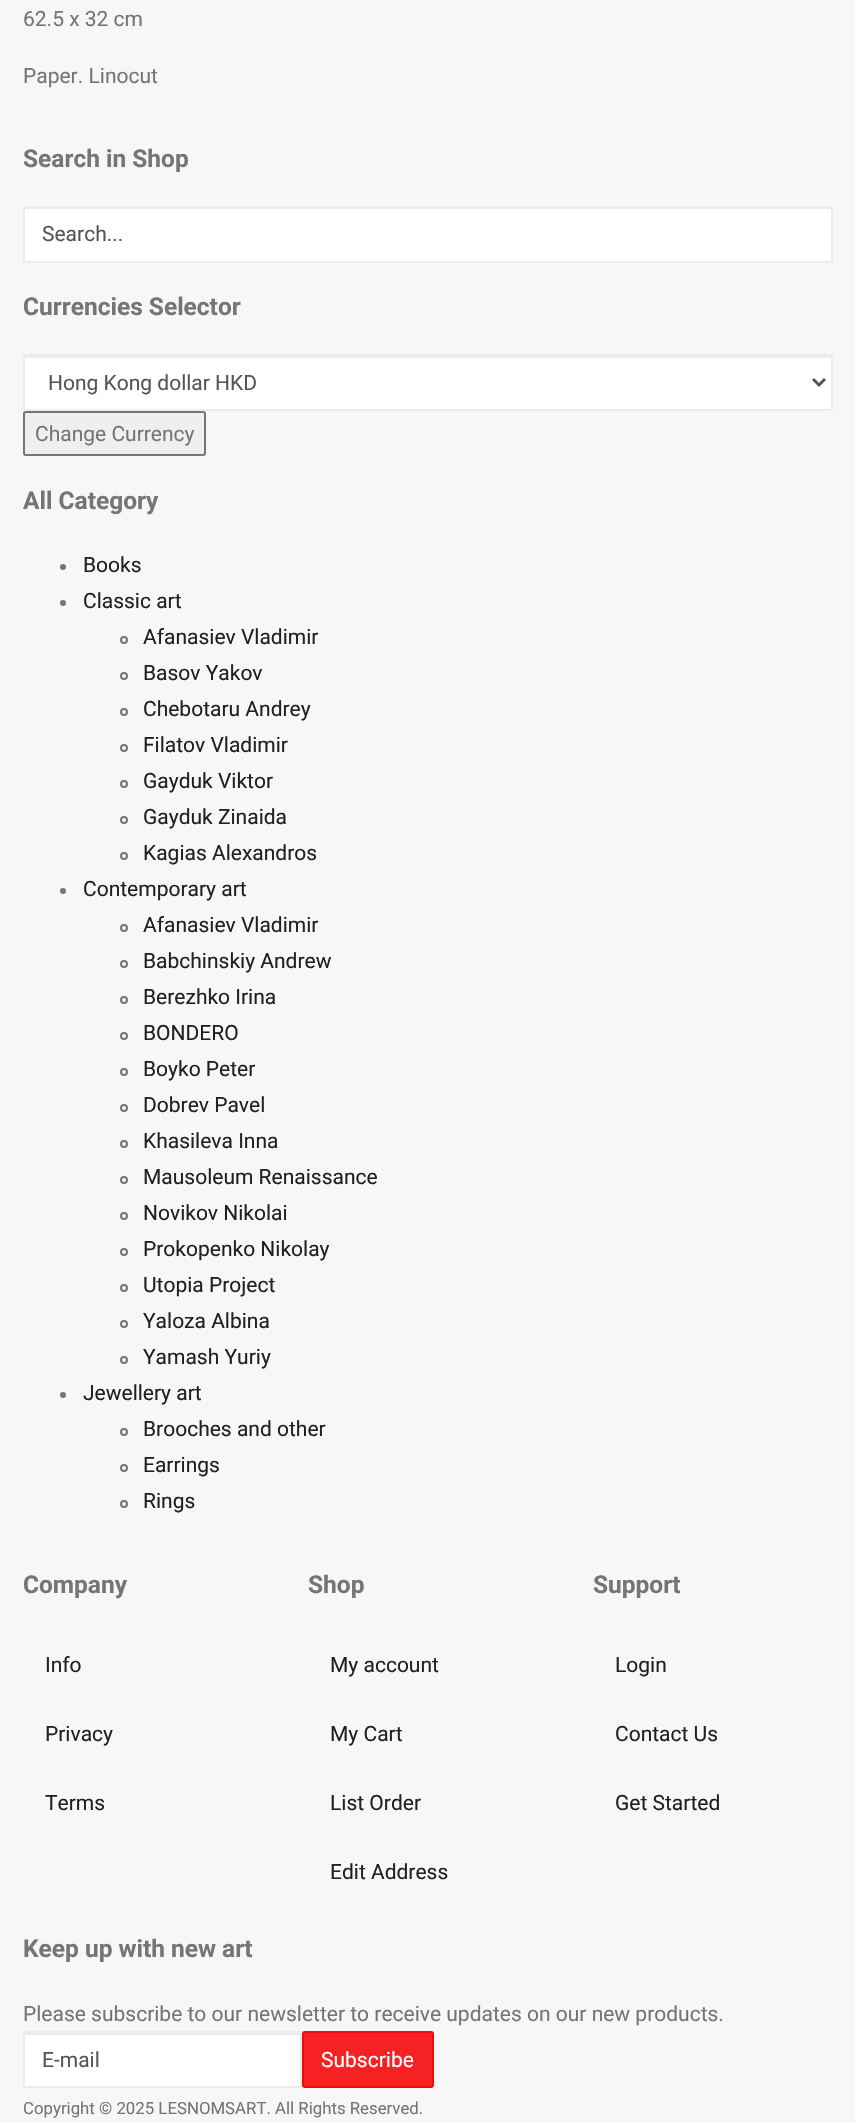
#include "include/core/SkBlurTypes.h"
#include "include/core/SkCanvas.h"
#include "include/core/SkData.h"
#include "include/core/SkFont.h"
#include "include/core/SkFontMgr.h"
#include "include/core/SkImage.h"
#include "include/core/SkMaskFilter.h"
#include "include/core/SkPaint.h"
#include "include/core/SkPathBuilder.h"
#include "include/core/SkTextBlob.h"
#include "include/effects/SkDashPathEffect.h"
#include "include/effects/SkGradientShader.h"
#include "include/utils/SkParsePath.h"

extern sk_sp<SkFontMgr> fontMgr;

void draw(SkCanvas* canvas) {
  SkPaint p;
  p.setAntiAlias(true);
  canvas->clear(SkColorSetRGB(247, 247, 247));
  p.setColor(SK_ColorWHITE);
  canvas->drawRect(SkRect::MakeLTRB(25, 209, 831, 261), p);
  p.setColor(SkColorSetRGB(236, 236, 236));
  canvas->drawRect(SkRect::MakeLTRB(24, 208, 831, 209), p);
  p.setStyle(SkPaint::kStroke_Style);
  p.setStrokeWidth(2);
  canvas->drawRect(SkRect::MakeLTRB(24, 207, 832, 262), p);
  p.setStyle(SkPaint::kFill_Style);
  p.setColor(SK_ColorWHITE);
  canvas->drawRect(SkRect::MakeLTRB(25, 358, 831, 409), p);
  p.setColor(SkColorSetRGB(236, 236, 236));
  canvas->drawRect(SkRect::MakeLTRB(24, 356, 831, 358), p);
  p.setStyle(SkPaint::kStroke_Style);
  canvas->drawRect(SkRect::MakeLTRB(24, 355, 832, 410), p);
  p.setStrokeWidth(3);
  p.setColor(SkColorSetRGB(85, 85, 85));
  canvas->drawPath(SkPathBuilder().moveTo(813, 379).lineTo(819, 385).lineTo(825, 379).detach(), p);
  p.setStyle(SkPaint::kFill_Style);
  p.setColor(SkColorSetRGB(239, 239, 239));
  canvas->drawRoundRect(SkRect::MakeLTRB(24, 412, 205, 455), 2, 2, p);
  p.setStyle(SkPaint::kStroke_Style);
  p.setStrokeWidth(2);
  p.setColor(SkColorSetRGB(118, 118, 118));
  canvas->drawRoundRect(SkRect::MakeLTRB(24, 412, 205, 455), 2, 2, p);
  p.setStyle(SkPaint::kFill_Style);
  p.setColor(SkColorSetRGB(117, 117, 117));
  canvas->drawCircle(63, 567, 3, p);
  canvas->drawCircle(63, 603, 3, p);
  p.setStyle(SkPaint::kStroke_Style);
  canvas->drawCircle(124, 640, 3, p);
  canvas->drawCircle(124, 676, 3, p);
  canvas->drawCircle(124, 712, 3, p);
  canvas->drawCircle(124, 748, 3, p);
  canvas->drawCircle(124, 784, 3, p);
  canvas->drawCircle(124, 820, 3, p);
  canvas->drawCircle(124, 856, 3, p);
  p.setStyle(SkPaint::kFill_Style);
  canvas->drawCircle(63, 891, 3, p);
  p.setStyle(SkPaint::kStroke_Style);
  canvas->drawCircle(124, 928, 3, p);
  canvas->drawCircle(124, 964, 3, p);
  canvas->drawCircle(124, 1000, 3, p);
  canvas->drawCircle(124, 1036, 3, p);
  canvas->drawCircle(124, 1072, 3, p);
  canvas->drawCircle(124, 1108, 3, p);
  canvas->drawCircle(124, 1144, 3, p);
  canvas->drawCircle(124, 1180, 3, p);
  canvas->drawCircle(124, 1216, 3, p);
  canvas->drawCircle(124, 1252, 3, p);
  canvas->drawCircle(124, 1288, 3, p);
  canvas->drawCircle(124, 1324, 3, p);
  canvas->drawCircle(124, 1360, 3, p);
  p.setStyle(SkPaint::kFill_Style);
  canvas->drawCircle(63, 1395, 3, p);
  p.setStyle(SkPaint::kStroke_Style);
  canvas->drawCircle(124, 1432, 3, p);
  canvas->drawCircle(124, 1468, 3, p);
  canvas->drawCircle(124, 1504, 3, p);
  p.setStyle(SkPaint::kFill_Style);
  p.setColor(SK_ColorWHITE);
  canvas->drawRect(SkRect::MakeLTRB(25, 2035, 300, 2086), p);
  p.setColor(SkColorSetRGB(236, 236, 236));
  canvas->drawRect(SkRect::MakeLTRB(24, 2033, 300, 2035), p);
  p.setStyle(SkPaint::kStroke_Style);
  canvas->drawRect(SkRect::MakeLTRB(24, 2032, 301, 2087), p);
  p.setStyle(SkPaint::kFill_Style);
  p.setColor(SkColorSetRGB(246, 33, 35));
  canvas->drawRoundRect(SkRect::MakeLTRB(303, 2032, 433, 2087), 2, 2, p);
  p.setStyle(SkPaint::kStroke_Style);
  p.setColor(SkColorSetRGB(244, 10, 12));
  canvas->drawRoundRect(SkRect::MakeLTRB(303, 2032, 433, 2087), 2, 2, p);
  SkFont font1(fontMgr->matchFamilyStyle("Roboto", SkFontStyle::Normal()), 21);
  font1.setSubpixel(true);
  p.setStyle(SkPaint::kFill_Style);
  p.setColor(SkColorSetRGB(117, 117, 117));
  canvas->drawString("62.5 х 32 cm", 23, 26, font1, p);
  canvas->drawString("Paper. Linocut", 23, 83, font1, p);
  SkFont font2(fontMgr->matchFamilyStyle("Roboto", SkFontStyle::Bold()), 24.5f);
  font2.setSubpixel(true);
  canvas->drawString("Search in Shop", 23, 167, font2, p);
  p.setColor(SkColorSetRGB(85, 85, 85));
  canvas->drawString("Search...", 42, 241, font1, p);
  p.setColor(SkColorSetRGB(117, 117, 117));
  canvas->drawString("Currencies Selector", 23, 315, font2, p);
  p.setColor(SkColorSetRGB(85, 85, 85));
  canvas->drawString("Hong Kong dollar HKD", 48, 390, font1, p);
  p.setColor(SkColorSetRGB(117, 117, 117));
  canvas->drawString("Change Currency", 35, 441, font1, p);
  canvas->drawString("All Category", 23, 509, font2, p);
  p.setColor(SkColorSetRGB(33, 33, 33));
  canvas->drawString("Books", 83, 572, font1, p);
  canvas->drawString("Classic art", 83, 608, font1, p);
  canvas->drawString("Afanasiev Vladimir", 143, 644, font1, p);
  canvas->drawString("Basov Yakov", 143, 680, font1, p);
  canvas->drawString("Chebotaru Andrey", 143, 716, font1, p);
  canvas->drawString("Filatov Vladimir", 143, 752, font1, p);
  canvas->drawString("Gayduk Viktor", 143, 788, font1, p);
  canvas->drawString("Gayduk Zinaida", 143, 824, font1, p);
  canvas->drawString("Kagias Alexandros", 143, 860, font1, p);
  canvas->drawString("Contemporary art", 83, 896, font1, p);
  canvas->drawString("Afanasiev Vladimir", 143, 932, font1, p);
  canvas->drawString("Babchinskiy Andrew", 143, 968, font1, p);
  canvas->drawString("Berezhko Irina", 143, 1004, font1, p);
  canvas->drawString("BONDERO", 143, 1040, font1, p);
  canvas->drawString("Boyko Peter", 143, 1076, font1, p);
  canvas->drawString("Dobrev Pavel", 143, 1112, font1, p);
  canvas->drawString("Khasileva Inna", 143, 1148, font1, p);
  canvas->drawString("Mausoleum Renaissance", 143, 1184, font1, p);
  canvas->drawString("Novikov Nikolai", 143, 1220, font1, p);
  canvas->drawString("Prokopenko Nikolay", 143, 1256, font1, p);
  canvas->drawString("Utopia Project", 143, 1292, font1, p);
  canvas->drawString("Yaloza Albina", 143, 1328, font1, p);
  canvas->drawString("Yamash Yuriy", 143, 1364, font1, p);
  canvas->drawString("Jewellery art", 83, 1400, font1, p);
  canvas->drawString("Brooches and other", 143, 1436, font1, p);
  canvas->drawString("Earrings", 143, 1472, font1, p);
  canvas->drawString("Rings", 143, 1508, font1, p);
  p.setColor(SkColorSetRGB(117, 117, 117));
  canvas->drawString("Company", 23, 1593, font2, p);
  p.setColor(SkColorSetRGB(33, 33, 33));
  canvas->drawString("Info", 45, 1672, font1, p);
  canvas->drawString("Privacy", 45, 1741, font1, p);
  canvas->drawString("Terms", 45, 1810, font1, p);
  p.setColor(SkColorSetRGB(117, 117, 117));
  canvas->drawString("Shop", 308, 1593, font2, p);
  p.setColor(SkColorSetRGB(33, 33, 33));
  canvas->drawString("My account", 330, 1672, font1, p);
  canvas->drawString("My Cart", 330, 1741, font1, p);
  canvas->drawString("List Order", 330, 1810, font1, p);
  canvas->drawString("Edit Address", 330, 1879, font1, p);
  p.setColor(SkColorSetRGB(117, 117, 117));
  canvas->drawString("Support", 593, 1593, font2, p);
  p.setColor(SkColorSetRGB(33, 33, 33));
  canvas->drawString("Login", 615, 1672, font1, p);
  canvas->drawString("Contact Us", 615, 1741, font1, p);
  canvas->drawString("Get Started", 615, 1810, font1, p);
  p.setColor(SkColorSetRGB(117, 117, 117));
  canvas->drawString("Keep up with new art", 23, 1957, font2, p);
  canvas->drawString("Please subscribe to our newsletter to receive updates on our new products.", 23, 2021, font1, p);
  p.setColor(SkColorSetRGB(85, 85, 85));
  canvas->drawString("E-mail", 42, 2067, font1, p);
  p.setColor(SK_ColorWHITE);
  canvas->drawString("Subscribe", 321, 2067, font1, p);
  SkFont font3(fontMgr->matchFamilyStyle("Roboto", SkFontStyle::Normal()), 16.8f);
  font3.setSubpixel(true);
  p.setColor(SkColorSetRGB(117, 117, 117));
  canvas->drawString("Copyright © 2025 LESNOMSART. All Rights Reserved.", 23, 2114, font3, p);
}
